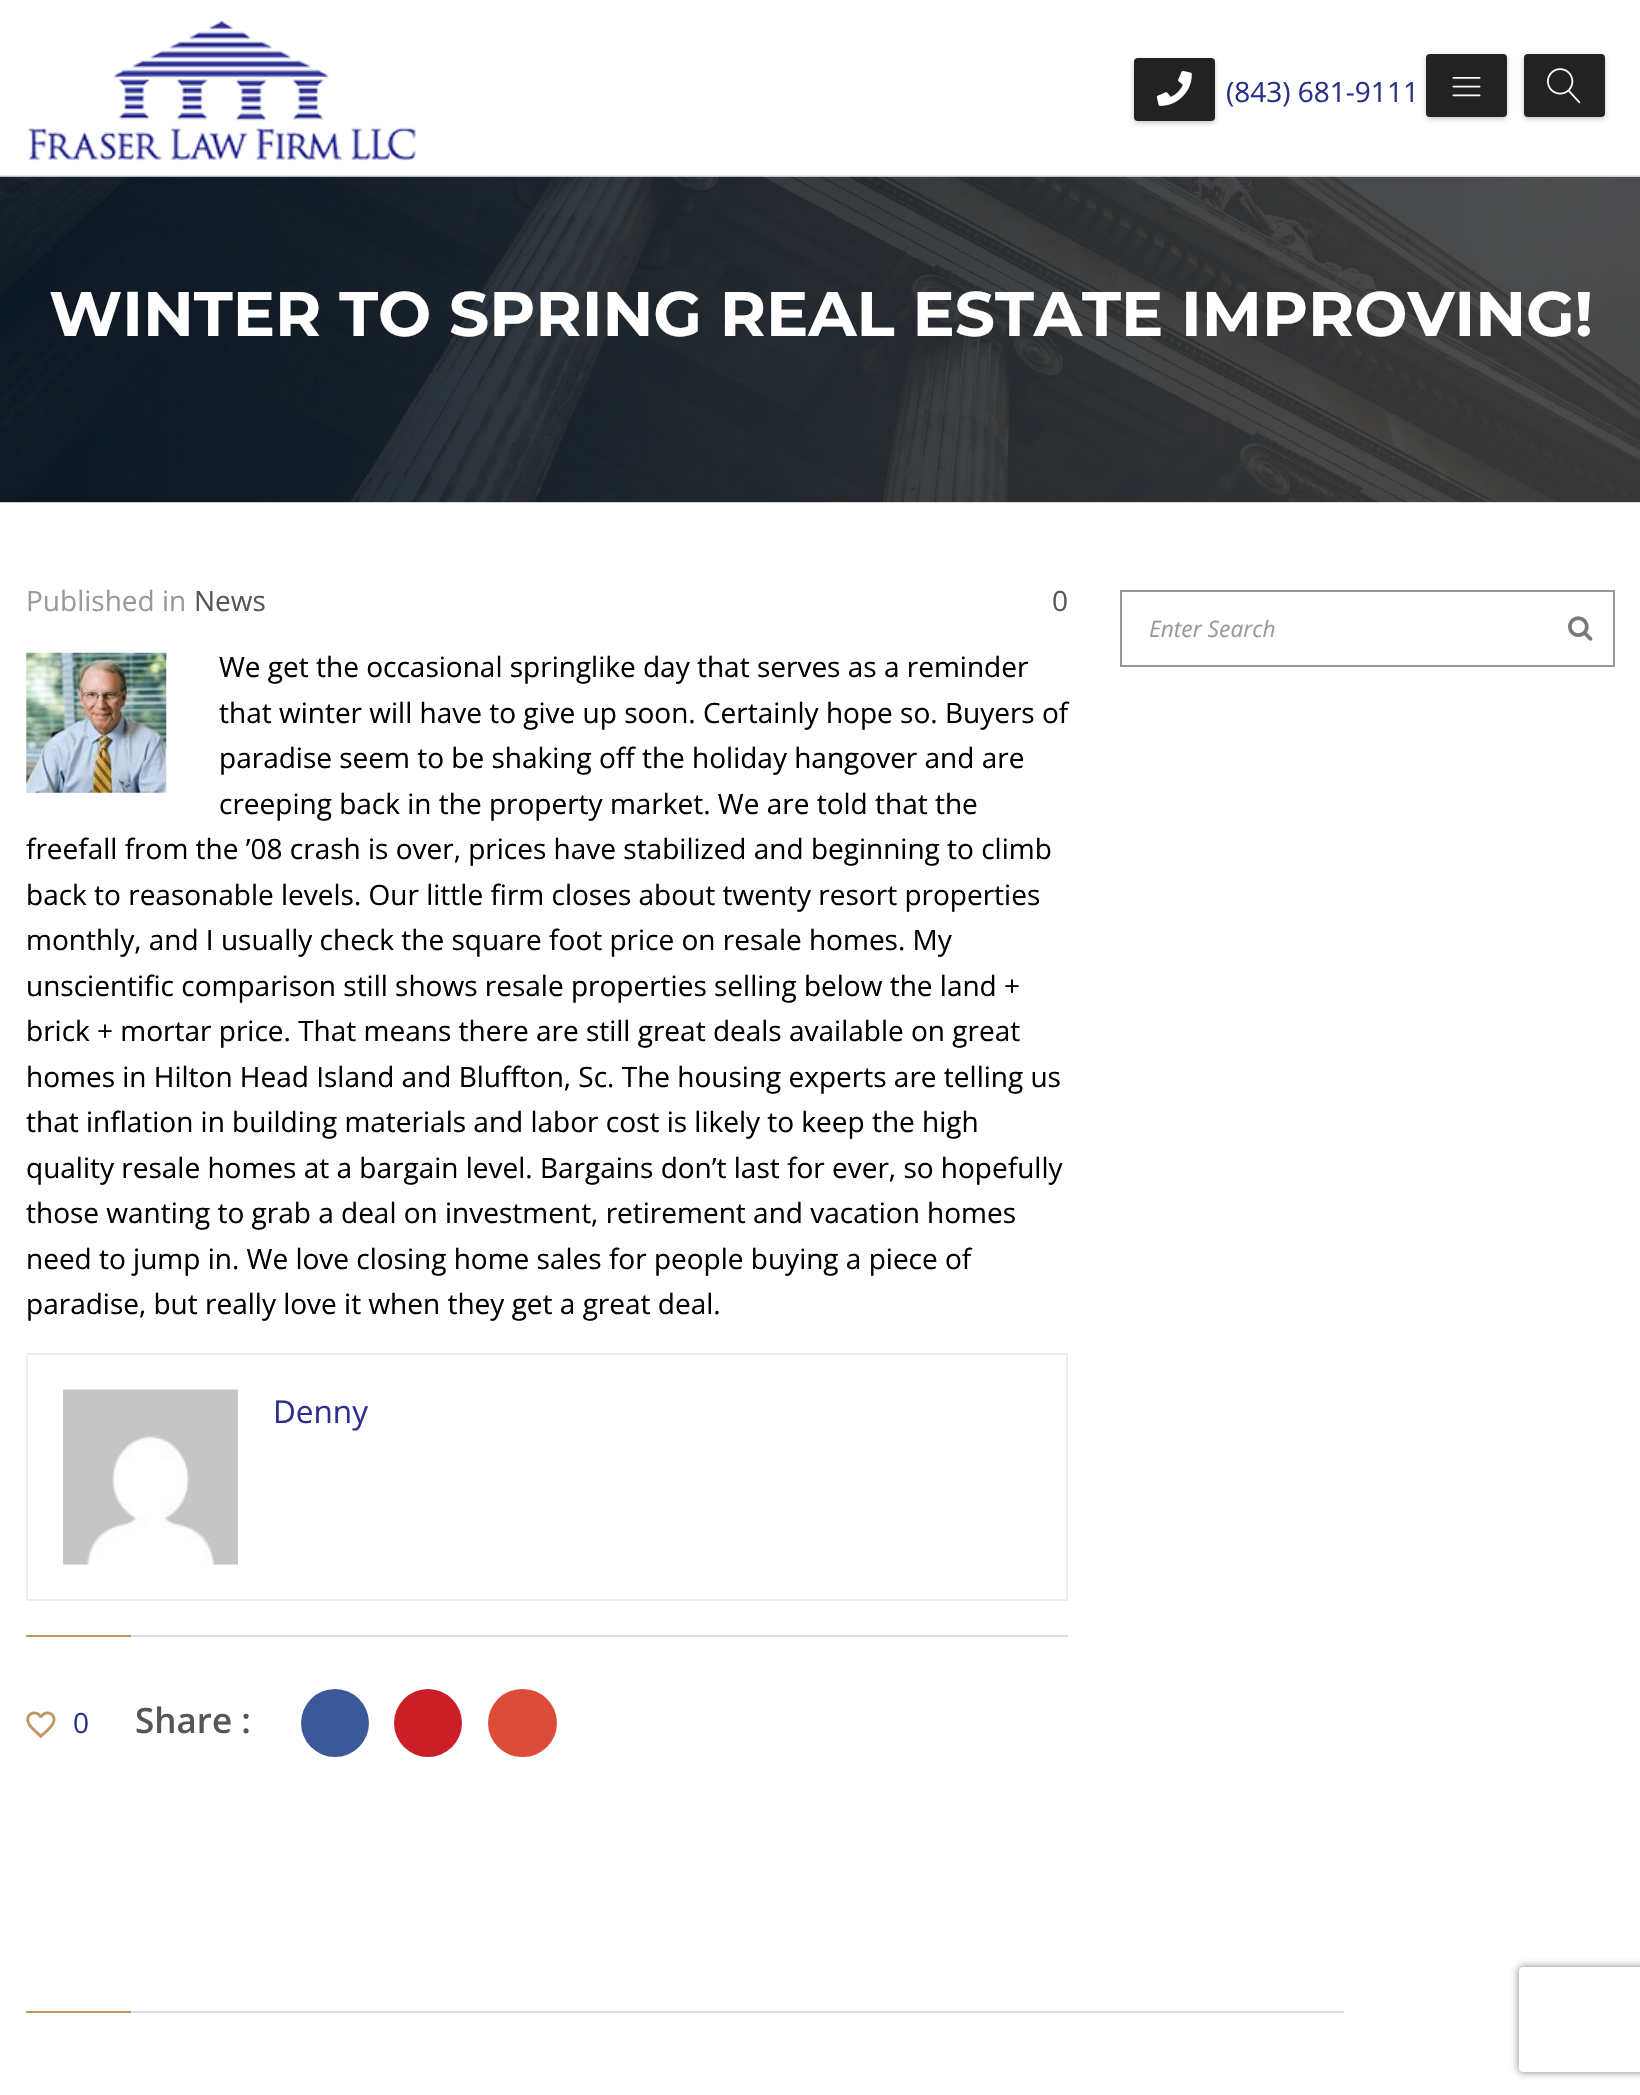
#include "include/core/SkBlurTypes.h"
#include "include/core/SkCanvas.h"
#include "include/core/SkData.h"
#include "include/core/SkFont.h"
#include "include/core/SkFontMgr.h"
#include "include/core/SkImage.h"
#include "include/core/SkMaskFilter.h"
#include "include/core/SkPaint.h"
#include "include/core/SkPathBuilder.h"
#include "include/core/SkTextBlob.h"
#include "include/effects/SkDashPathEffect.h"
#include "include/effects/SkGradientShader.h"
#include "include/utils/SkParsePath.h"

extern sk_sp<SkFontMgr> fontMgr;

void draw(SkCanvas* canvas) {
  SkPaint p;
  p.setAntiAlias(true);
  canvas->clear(SK_ColorWHITE);
  p.setColor(SkColorSetRGB(231, 228, 239));
  canvas->drawRect(SkRect::MakeLTRB(0, 175, 1640, 177), p);
  canvas->drawImageRect(SkImages::DeferredFromEncodedData(SkData::MakeFromFileName("images/1.png")), SkRect::MakeLTRB(27, 21, 417, 161), SkSamplingOptions());
  p.setColor(SkColorSetARGB(56, 0, 0, 0));
  p.setMaskFilter(SkMaskFilter::MakeBlur(kNormal_SkBlurStyle, 2.5f));
  canvas->drawRoundRect(SkRect::MakeLTRB(1134, 60, 1215, 123), 4, 4, p);
  p.setMaskFilter(nullptr);
  p.setColor(SkColorSetRGB(34, 34, 34));
  canvas->drawRoundRect(SkRect::MakeLTRB(1134, 58, 1215, 121), 4, 4, p);
  canvas->drawImageRect(SkImages::DeferredFromEncodedData(SkData::MakeFromFileName("images/2.png")), SkRect::MakeLTRB(1156, 70, 1192, 106), SkSamplingOptions());
  p.setColor(SkColorSetARGB(56, 0, 0, 0));
  p.setMaskFilter(SkMaskFilter::MakeBlur(kNormal_SkBlurStyle, 2.5f));
  canvas->drawRoundRect(SkRect::MakeLTRB(1426, 56, 1507, 119), 4, 4, p);
  p.setMaskFilter(nullptr);
  p.setColor(SkColorSetRGB(34, 34, 34));
  canvas->drawRoundRect(SkRect::MakeLTRB(1426, 54, 1507, 117), 4, 4, p);
  canvas->drawImageRect(SkImages::DeferredFromEncodedData(SkData::MakeFromFileName("images/3.png")), SkRect::MakeLTRB(1452, 77, 1481, 97), SkSamplingOptions());
  p.setColor(SkColorSetARGB(56, 0, 0, 0));
  p.setMaskFilter(SkMaskFilter::MakeBlur(kNormal_SkBlurStyle, 2.5f));
  canvas->drawRoundRect(SkRect::MakeLTRB(1524, 56, 1605, 119), 4, 4, p);
  p.setMaskFilter(nullptr);
  p.setColor(SkColorSetRGB(34, 34, 34));
  canvas->drawRoundRect(SkRect::MakeLTRB(1524, 54, 1605, 117), 4, 4, p);
  canvas->drawImageRect(SkImages::DeferredFromEncodedData(SkData::MakeFromFileName("images/4.png")), SkRect::MakeLTRB(1547, 68, 1581, 104), SkSamplingOptions());
  canvas->drawImageRect(SkImages::DeferredFromEncodedData(SkData::MakeFromFileName("images/5.png")), SkRect::MakeLTRB(0, 176, 1640, 503), SkSamplingOptions());
  canvas->drawImageRect(SkImages::DeferredFromEncodedData(SkData::MakeFromFileName("images/6.png")), SkRect::MakeLTRB(26, 652, 167, 793), SkSamplingOptions());
  p.setStyle(SkPaint::kStroke_Style);
  p.setStrokeWidth(2);
  p.setColor(SkColorSetRGB(238, 238, 238));
  canvas->drawRect(SkRect::MakeLTRB(27, 1354, 1067, 1600), p);
  canvas->drawImageRect(SkImages::DeferredFromEncodedData(SkData::MakeFromFileName("images/7.png")), SkRect::MakeLTRB(63, 1389, 238, 1565), SkSamplingOptions());
  p.setStyle(SkPaint::kFill_Style);
  p.setColor(SkColorSetRGB(194, 151, 101));
  canvas->drawRect(SkRect::MakeLTRB(26, 1635, 131, 1637), p);
  p.setColor(SkColorSetRGB(221, 221, 221));
  canvas->drawRect(SkRect::MakeLTRB(131, 1635, 1068, 1637), p);
  canvas->drawImageRect(SkImages::DeferredFromEncodedData(SkData::MakeFromFileName("images/8.png")), SkRect::MakeLTRB(26, 1711, 56, 1739), SkSamplingOptions());
  p.setColor(SkColorSetRGB(59, 89, 152));
  canvas->drawCircle(335, 1723, 34, p);
  p.setColor(SkColorSetRGB(202, 31, 39));
  canvas->drawCircle(428, 1723, 34, p);
  p.setColor(SkColorSetRGB(221, 75, 57));
  canvas->drawRoundRect(SkRect::MakeLTRB(488, 1689, 557, 1757), 34, 34, p);
  p.setStyle(SkPaint::kStroke_Style);
  p.setColor(SkColorSetRGB(153, 153, 153));
  canvas->drawRect(SkRect::MakeLTRB(1121, 591, 1614, 666), p);
  canvas->drawImageRect(SkImages::DeferredFromEncodedData(SkData::MakeFromFileName("images/9.png")), SkRect::MakeLTRB(1568, 616, 1593, 641), SkSamplingOptions());
  p.setStyle(SkPaint::kFill_Style);
  p.setColor(SkColorSetRGB(194, 151, 101));
  canvas->drawRect(SkRect::MakeLTRB(26, 2011, 131, 2013), p);
  p.setColor(SkColorSetRGB(221, 221, 221));
  canvas->drawRect(SkRect::MakeLTRB(131, 2011, 1344, 2013), p);
  canvas->save();
  canvas->clipPath(SkPathBuilder(SkPathFillType::kEvenOdd).moveTo(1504, 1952).lineTo(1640, 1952).lineTo(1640, 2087).lineTo(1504, 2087).close().moveTo(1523, 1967).lineTo(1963, 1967).cubicTo(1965, 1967, 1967, 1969, 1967, 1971).lineTo(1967, 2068).cubicTo(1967, 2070, 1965, 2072, 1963, 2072).lineTo(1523, 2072).cubicTo(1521, 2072, 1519, 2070, 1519, 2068).lineTo(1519, 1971).cubicTo(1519, 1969, 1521, 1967, 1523, 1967).close().detach(), true);
  p.setColor(SkColorSetRGB(128, 128, 128));
  p.setMaskFilter(SkMaskFilter::MakeBlur(kNormal_SkBlurStyle, 4.5f));
  canvas->drawRoundRect(SkRect::MakeLTRB(1519, 1967, 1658, 2072), 4, 4, p);
  p.setMaskFilter(nullptr);
  canvas->restore();
  SkFont font1(fontMgr->matchFamilyStyle("Open Sans", SkFontStyle::Normal()), 28);
  font1.setSubpixel(true);
  p.setColor(SkColorSetRGB(42, 48, 137));
  canvas->drawString("(843) 681-9111", 1226, 102, font1, p);
  SkFont font2(fontMgr->matchFamilyStyle("Montserrat", SkFontStyle::Bold()), 63);
  font2.setSubpixel(true);
  p.setColor(SK_ColorWHITE);
  canvas->drawString("WINTER TO SPRING REAL ESTATE IMPROVING!", 49, 336, font2, p);
  p.setColor(SkColorSetRGB(153, 153, 153));
  canvas->drawString("Published in", 26, 611, font1, p);
  p.setColor(SkColorSetRGB(86, 86, 86));
  canvas->drawString("News", 194, 611, font1, p);
  canvas->drawString("0", 1052, 611, font1, p);
  p.setColor(SK_ColorBLACK);
  canvas->drawString("We get the occasional springlike day that serves as a reminder", 219, 677, font1, p);
  canvas->drawString("that winter will have to give up soon. Certainly hope so. Buyers of", 219, 723, font1, p);
  canvas->drawString("paradise seem to be shaking off the holiday hangover and are", 219, 768, font1, p);
  canvas->drawString("creeping back in the property market. We are told that the", 219, 814, font1, p);
  canvas->drawString("freefall from the ’08 crash is over, prices have stabilized and beginning to climb", 26, 859, font1, p);
  canvas->drawString("back to reasonable levels. Our little firm closes about twenty resort properties", 26, 905, font1, p);
  canvas->drawString("monthly, and I usually check the square foot price on resale homes. My", 26, 950, font1, p);
  canvas->drawString("unscientific comparison still shows resale properties selling below the land +", 26, 996, font1, p);
  canvas->drawString("brick + mortar price. That means there are still great deals available on great", 26, 1041, font1, p);
  canvas->drawString("homes in Hilton Head Island and Bluffton, Sc. The housing experts are telling us", 26, 1087, font1, p);
  canvas->drawString("that inflation in building materials and labor cost is likely to keep the high", 26, 1132, font1, p);
  canvas->drawString("quality resale homes at a bargain level. Bargains don’t last for ever, so hopefully", 26, 1178, font1, p);
  canvas->drawString("those wanting to grab a deal on investment, retirement and vacation homes", 26, 1223, font1, p);
  canvas->drawString("need to jump in. We love closing home sales for people buying a piece of", 26, 1269, font1, p);
  canvas->drawString("paradise, but really love it when they get a great deal.", 26, 1314, font1, p);
  SkFont font3(fontMgr->matchFamilyStyle("Open Sans", SkFontStyle::Normal()), 31.5f);
  font3.setSubpixel(true);
  p.setColor(SkColorSetRGB(42, 48, 137));
  canvas->drawString("Denny", 273, 1423, font3, p);
  canvas->drawString("0", 73, 1733, font1, p);
  SkFont font4(fontMgr->matchFamilyStyle("Open Sans", SkFontStyle(600, SkFontStyle::kNormal_Width, SkFontStyle::kUpright_Slant)), 35);
  font4.setSubpixel(true);
  p.setColor(SkColorSetRGB(86, 86, 86));
  canvas->drawString("Share :", 135, 1733, font4, p);
  SkFont font5(fontMgr->matchFamilyStyle("Open Sans", SkFontStyle::Italic()), 22.75f);
  font5.setSubpixel(true);
  p.setColor(SkColorSetRGB(153, 153, 153));
  canvas->drawString("Enter Search", 1149, 637, font5, p);
}
